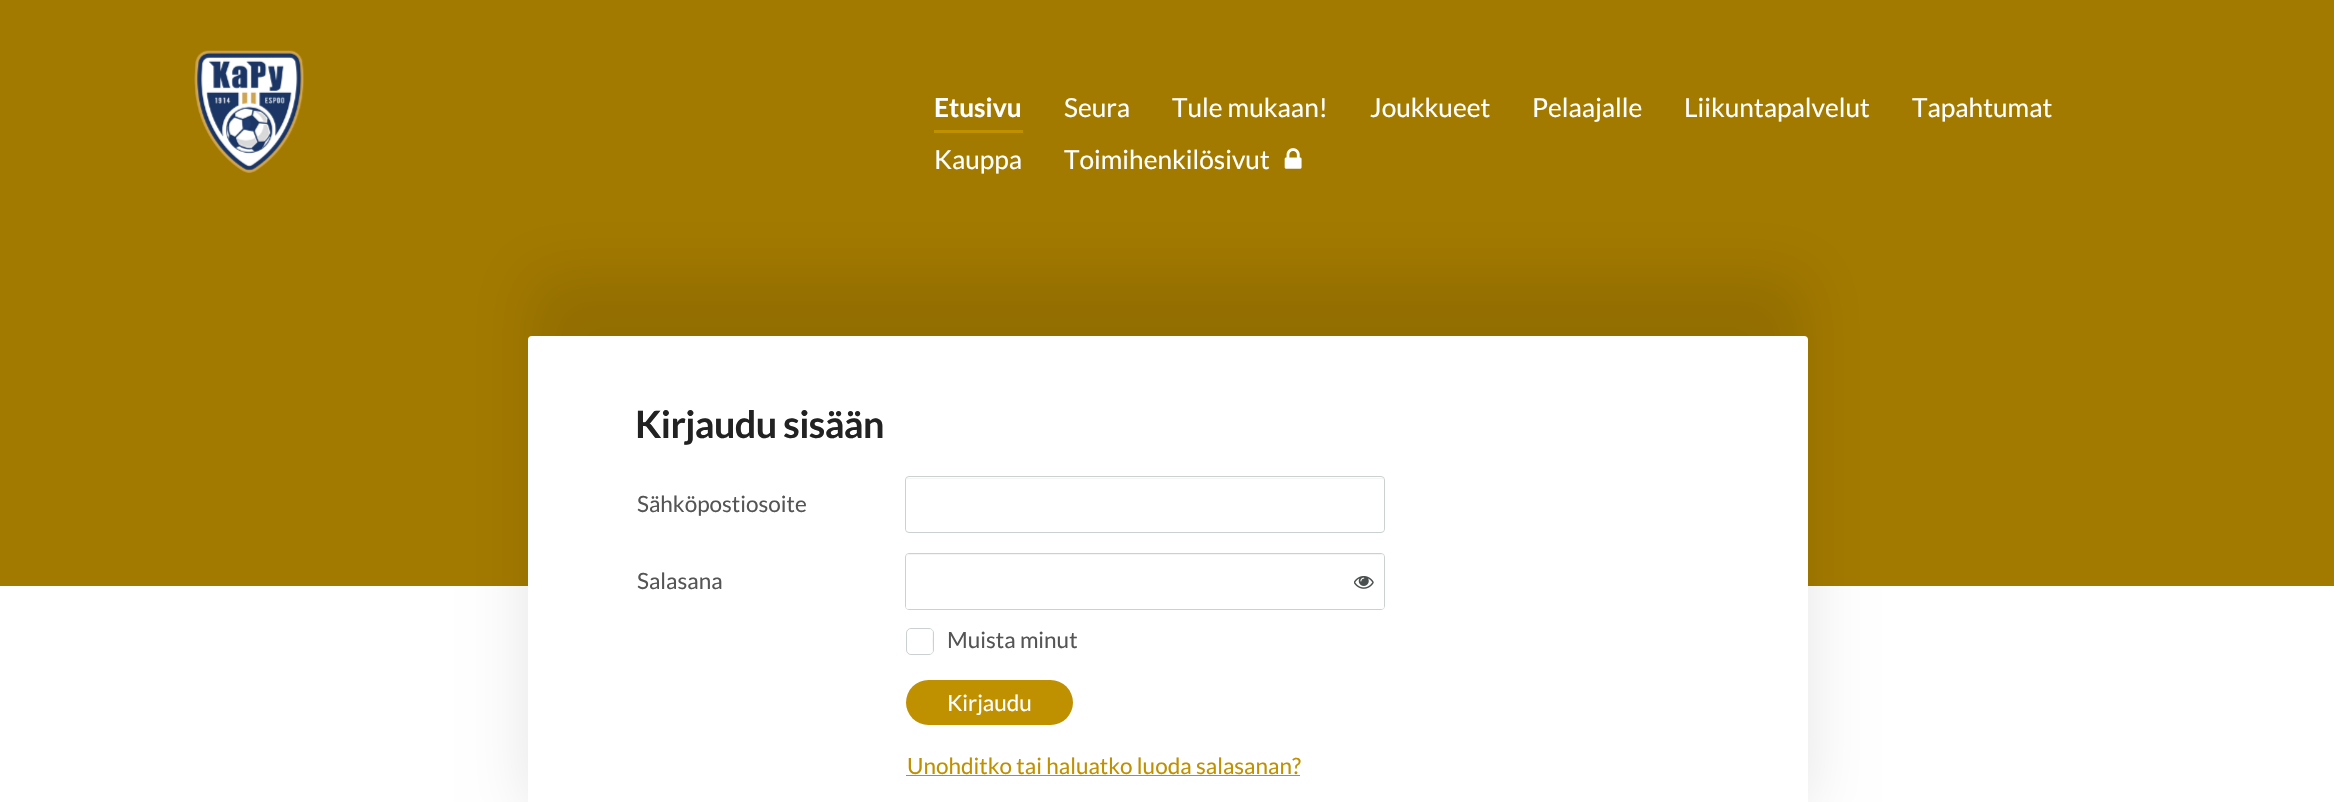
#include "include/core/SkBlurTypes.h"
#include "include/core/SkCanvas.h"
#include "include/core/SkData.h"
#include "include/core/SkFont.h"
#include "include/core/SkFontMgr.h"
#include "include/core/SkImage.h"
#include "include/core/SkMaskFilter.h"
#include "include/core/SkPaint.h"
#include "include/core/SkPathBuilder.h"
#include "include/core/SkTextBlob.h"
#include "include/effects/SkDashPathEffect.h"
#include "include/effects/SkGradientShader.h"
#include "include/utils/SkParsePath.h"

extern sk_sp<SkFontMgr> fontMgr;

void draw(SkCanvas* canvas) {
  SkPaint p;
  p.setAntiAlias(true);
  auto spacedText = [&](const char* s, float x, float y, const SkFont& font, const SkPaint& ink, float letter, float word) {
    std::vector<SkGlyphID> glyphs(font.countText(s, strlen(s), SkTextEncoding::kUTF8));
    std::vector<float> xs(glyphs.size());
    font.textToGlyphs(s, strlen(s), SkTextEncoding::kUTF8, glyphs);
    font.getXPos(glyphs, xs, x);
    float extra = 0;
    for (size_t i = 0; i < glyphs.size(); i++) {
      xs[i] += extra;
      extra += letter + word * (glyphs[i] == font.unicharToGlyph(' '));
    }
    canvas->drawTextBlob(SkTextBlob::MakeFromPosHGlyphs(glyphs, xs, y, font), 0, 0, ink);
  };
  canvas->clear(SK_ColorWHITE);
  p.setColor(SkColorSetRGB(163, 122, 0));
  canvas->drawRect(SkRect::MakeLTRB(0, 0, 2334, 586), p);
  canvas->drawImageRect(SkImages::DeferredFromEncodedData(SkData::MakeFromFileName("images/1.png")), SkRect::MakeLTRB(194, 50, 304, 173), SkSamplingOptions());
  p.setColor(SkColorSetRGB(191, 144, 0));
  canvas->drawRect(SkRect::MakeLTRB(934, 130, 1023, 133), p);
  canvas->drawImageRect(SkImages::DeferredFromEncodedData(SkData::MakeFromFileName("images/2.png")), SkRect::MakeLTRB(1284, 148, 1302, 169), SkSamplingOptions());
  p.setColor(SkColorSetARGB(26, 0, 0, 0));
  p.setMaskFilter(SkMaskFilter::MakeBlur(kNormal_SkBlurStyle, 31));
  canvas->drawRoundRect(SkRect::MakeLTRB(528, 274, 1808, 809), 4, 4, p);
  p.setMaskFilter(nullptr);
  p.setColor(SK_ColorWHITE);
  canvas->drawRoundRect(SkRect::MakeLTRB(528, 336, 1808, 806), 4, 4, p);
  p.setStyle(SkPaint::kStroke_Style);
  p.setStrokeWidth(1);
  p.setColor(SkColorSetRGB(203, 208, 208));
  canvas->drawRoundRect(SkRect::MakeLTRB(905.5f, 476.5f, 1384.5f, 532.5f), 3.5f, 3.5f, p);
  p.setStyle(SkPaint::kFill_Style);
  p.setColor(SK_ColorWHITE);
  canvas->drawRoundRect(SkRect::MakeLTRB(906, 478, 1384, 531), 2.5f, 2.5f, p);
  p.setColor(SkColorSetRGB(245, 245, 246));
  canvas->drawPath(SkPathBuilder().moveTo(909, 479).lineTo(1381, 479).cubicTo(1383, 479, 1384, 480, 1384, 481).cubicTo(1384, 479, 1383, 478, 1382, 478).lineTo(908, 478).cubicTo(907, 478, 906, 479, 906, 481).cubicTo(906, 480, 907, 479, 909, 479).close().detach(), p);
  p.setStyle(SkPaint::kStroke_Style);
  p.setColor(SkColorSetRGB(203, 208, 208));
  canvas->drawRoundRect(SkRect::MakeLTRB(905.5f, 553.5f, 1384.5f, 609.5f), 3.5f, 3.5f, p);
  p.setStyle(SkPaint::kFill_Style);
  p.setColor(SK_ColorWHITE);
  canvas->drawRoundRect(SkRect::MakeLTRB(906, 554, 1384, 609), 2.5f, 2.5f, p);
  p.setColor(SkColorSetARGB(13, 63, 63, 68));
  canvas->drawPath(SkPathBuilder().moveTo(909, 555).lineTo(1381, 555).cubicTo(1383, 555, 1384, 556, 1384, 558).cubicTo(1384, 556, 1384, 554, 1382, 554).lineTo(908, 554).lineTo(906, 555).lineTo(906, 558).cubicTo(906, 556, 907, 555, 909, 555).close().detach(), p);
  canvas->drawImageRect(SkImages::DeferredFromEncodedData(SkData::MakeFromFileName("images/3.png")), SkRect::MakeLTRB(1354, 576, 1374, 589), SkSamplingOptions());
  p.setStyle(SkPaint::kStroke_Style);
  p.setColor(SkColorSetRGB(203, 208, 208));
  canvas->drawRoundRect(SkRect::MakeLTRB(906.5f, 628.5f, 933.5f, 654.5f), 4.5f, 4.5f, p);
  p.setStyle(SkPaint::kFill_Style);
  p.setColor(SK_ColorWHITE);
  canvas->drawRoundRect(SkRect::MakeLTRB(908, 629, 933, 654), 4, 4, p);
  p.setColor(SkColorSetARGB(13, 63, 63, 68));
  canvas->drawPath(SkPathBuilder().moveTo(926, 654).lineTo(929, 654).cubicTo(931, 654, 933, 652, 933, 650).lineTo(933, 633).cubicTo(933, 631, 931, 629, 929, 629).lineTo(926, 629).cubicTo(933, 629, 932.5f, 632, 932.5f, 637).lineTo(932, 642).lineTo(932.5f, 647).cubicTo(932.5f, 651.5f, 933, 654, 926, 654).close().detach(), p);
  p.setColor(SkColorSetRGB(191, 144, 0));
  canvas->drawRoundRect(SkRect::MakeLTRB(906, 680, 1073, 725), 22.5f, 22.5f, p);
  canvas->drawRect(SkRect::MakeLTRB(906, 775, 1300, 776), p);
  SkFont font1(fontMgr->matchFamilyStyle("Lato", SkFontStyle::Bold()), 26.25f);
  font1.setSubpixel(true);
  p.setColor(SK_ColorWHITE);
  canvas->drawString("Etusivu", 934, 117, font1, p);
  SkFont font2(fontMgr->matchFamilyStyle("Lato", SkFontStyle::Normal()), 26.25f);
  font2.setSubpixel(true);
  canvas->drawString("Seura", 1064, 117, font2, p);
  canvas->drawString("Tule mukaan!", 1172, 117, font2, p);
  canvas->drawString("Joukkueet", 1370, 117, font2, p);
  canvas->drawString("Pelaajalle", 1532, 117, font2, p);
  canvas->drawString("Liikuntapalvelut", 1684, 117, font2, p);
  canvas->drawString("Tapahtumat", 1912, 117, font2, p);
  canvas->drawString("Kauppa", 934, 169, font2, p);
  canvas->drawString("Toimihenkilösivut", 1064, 169, font2, p);
  SkFont font3(fontMgr->matchFamilyStyle("Lato", SkFontStyle::Bold()), 37.75f);
  font3.setSubpixel(true);
  p.setColor(SkColorSetRGB(34, 34, 34));
  spacedText("Kirjaudu sisään", 635, 438, font3, p, -0.6f, 0);
  SkFont font4(fontMgr->matchFamilyStyle("Lato", SkFontStyle::Normal()), 22.5f);
  font4.setSubpixel(true);
  p.setColor(SkColorSetRGB(85, 85, 85));
  canvas->drawString("Sähköpostiosoite", 637, 512, font4, p);
  canvas->drawString("Salasana", 637, 589, font4, p);
  canvas->drawString("Muista minut", 947, 648, font4, p);
  p.setColor(SK_ColorWHITE);
  canvas->drawString("Kirjaudu", 947, 711, font4, p);
  p.setColor(SkColorSetRGB(191, 144, 0));
  canvas->drawString("Unohditko tai haluatko luoda salasanan?", 907, 774, font4, p);
}
